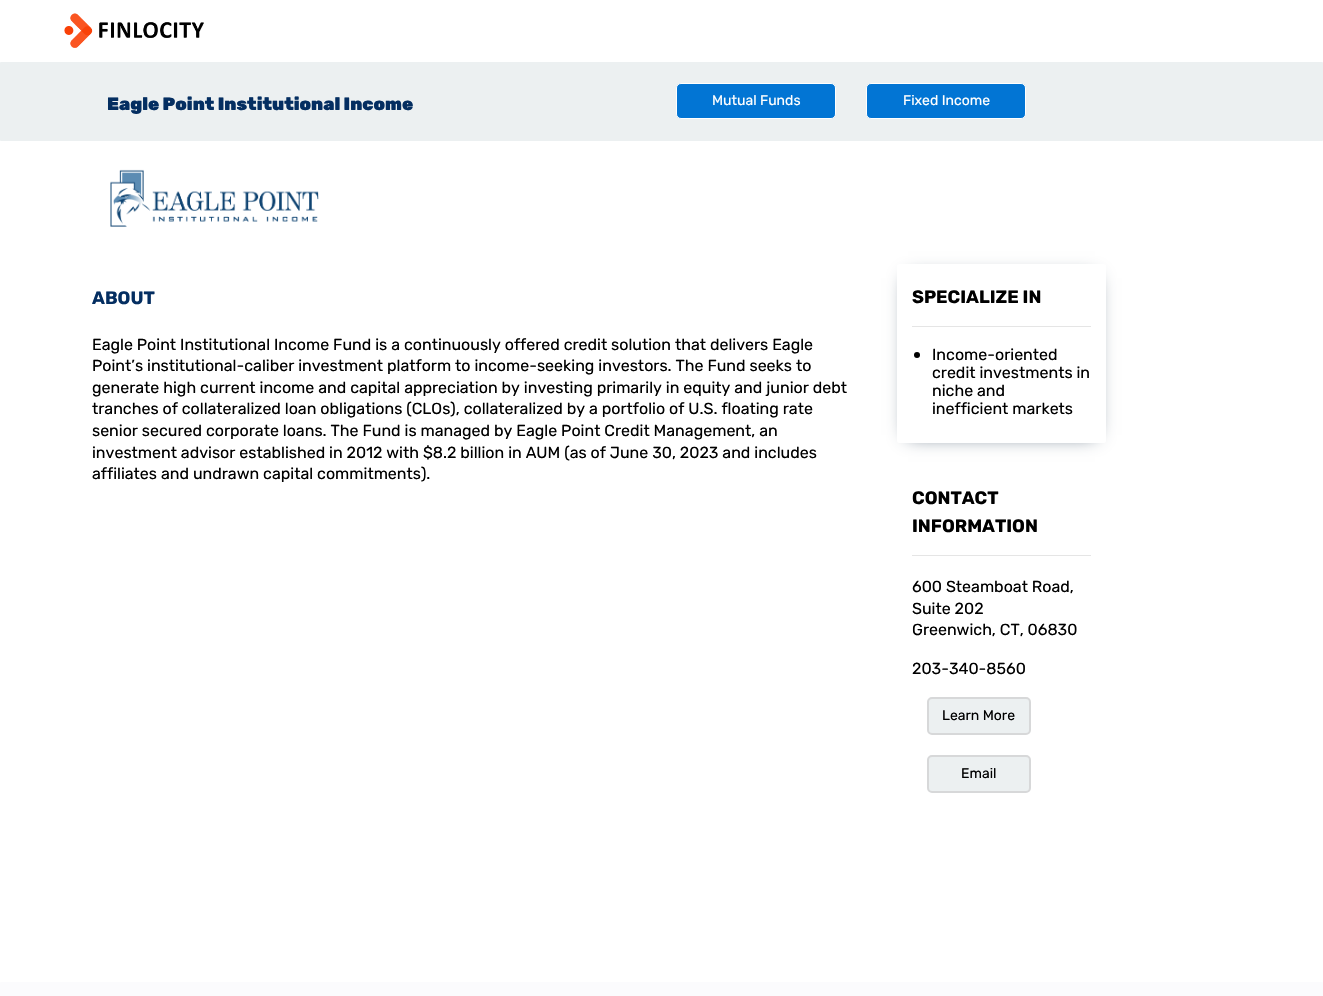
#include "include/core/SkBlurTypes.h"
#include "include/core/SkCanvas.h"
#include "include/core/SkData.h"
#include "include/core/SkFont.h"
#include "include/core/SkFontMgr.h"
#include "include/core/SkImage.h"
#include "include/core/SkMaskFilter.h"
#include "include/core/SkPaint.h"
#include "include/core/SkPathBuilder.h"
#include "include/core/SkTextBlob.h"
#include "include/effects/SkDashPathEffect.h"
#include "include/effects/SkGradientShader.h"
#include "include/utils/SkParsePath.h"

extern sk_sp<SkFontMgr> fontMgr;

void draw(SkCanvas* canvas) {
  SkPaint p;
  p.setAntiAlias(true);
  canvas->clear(SK_ColorWHITE);
  canvas->drawImageRect(SkImages::DeferredFromEncodedData(SkData::MakeFromFileName("images/1.png")), SkRect::MakeLTRB(64, 13, 204, 48), SkSamplingOptions());
  p.setColor(SkColorSetRGB(236, 240, 241));
  canvas->drawRoundRect(SkRect::MakeLTRB(0, 62, 1323, 141), 1, 1, p);
  p.setColor(SkColorSetRGB(2, 117, 212));
  canvas->drawRoundRect(SkRect::MakeLTRB(676.5f, 83.5f, 835.5f, 118.5f), 4.5f, 4.5f, p);
  p.setStyle(SkPaint::kStroke_Style);
  p.setStrokeWidth(1);
  p.setColor(SK_ColorWHITE);
  canvas->drawRoundRect(SkRect::MakeLTRB(676.5f, 83.5f, 835.5f, 118.5f), 4.5f, 4.5f, p);
  p.setStyle(SkPaint::kFill_Style);
  p.setColor(SkColorSetRGB(2, 117, 212));
  canvas->drawRoundRect(SkRect::MakeLTRB(866.5f, 83.5f, 1025.5f, 118.5f), 4.5f, 4.5f, p);
  p.setStyle(SkPaint::kStroke_Style);
  p.setColor(SK_ColorWHITE);
  canvas->drawRoundRect(SkRect::MakeLTRB(866.5f, 83.5f, 1025.5f, 118.5f), 4.5f, 4.5f, p);
  canvas->drawImageRect(SkImages::DeferredFromEncodedData(SkData::MakeFromFileName("images/2.png")), SkRect::MakeLTRB(110, 169, 319, 227), SkSamplingOptions());
  canvas->save();
  canvas->clipPath(SkPathBuilder(SkPathFillType::kEvenOdd).moveTo(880, 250).lineTo(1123, 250).lineTo(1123, 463).lineTo(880, 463).close().moveTo(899, 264).lineTo(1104, 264).cubicTo(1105, 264, 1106, 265, 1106, 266).lineTo(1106, 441).cubicTo(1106, 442, 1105, 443, 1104, 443).lineTo(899, 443).cubicTo(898, 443, 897, 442, 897, 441).lineTo(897, 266).cubicTo(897, 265, 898, 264, 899, 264).close().detach(), true);
  p.setStyle(SkPaint::kFill_Style);
  p.setColor(SkColorSetRGB(52, 73, 94));
  p.setMaskFilter(SkMaskFilter::MakeBlur(kNormal_SkBlurStyle, 9));
  canvas->drawRect(SkRect::MakeLTRB(908, 278, 1095, 435), p);
  p.setMaskFilter(nullptr);
  canvas->restore();
  p.setColor(SkColorSetRGB(229, 229, 229));
  canvas->drawRect(SkRect::MakeLTRB(912, 326, 1091, 327), p);
  p.setColor(SK_ColorBLACK);
  canvas->drawCircle(917, 355, 3, p);
  p.setColor(SkColorSetRGB(229, 229, 229));
  canvas->drawRect(SkRect::MakeLTRB(912, 555, 1091, 556), p);
  p.setColor(SkColorSetRGB(236, 240, 241));
  canvas->drawRoundRect(SkRect::MakeLTRB(928, 698, 1030, 734), 4, 4, p);
  p.setStyle(SkPaint::kStroke_Style);
  p.setStrokeWidth(2);
  p.setColor(SkColorSetRGB(215, 216, 217));
  canvas->drawRoundRect(SkRect::MakeLTRB(928, 698, 1030, 734), 4, 4, p);
  p.setStyle(SkPaint::kFill_Style);
  p.setColor(SkColorSetRGB(236, 240, 241));
  canvas->drawRoundRect(SkRect::MakeLTRB(928, 756, 1030, 792), 4, 4, p);
  p.setStyle(SkPaint::kStroke_Style);
  p.setColor(SkColorSetRGB(215, 216, 217));
  canvas->drawRoundRect(SkRect::MakeLTRB(928, 756, 1030, 792), 4, 4, p);
  p.setStyle(SkPaint::kFill_Style);
  p.setColor(SkColorSetRGB(251, 251, 253));
  canvas->drawRoundRect(SkRect::MakeLTRB(0, 982, 1323, 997), 1, 1, p);
  SkFont font1(fontMgr->matchFamilyStyle("Rubik", SkFontStyle(900, SkFontStyle::kNormal_Width, SkFontStyle::kUpright_Slant)), 18);
  font1.setSubpixel(true);
  p.setColor(SkColorSetRGB(4, 46, 97));
  canvas->drawString("Eagle Point Institutional Income", 107, 110, font1, p);
  SkFont font2(fontMgr->matchFamilyStyle("Rubik", SkFontStyle::Normal()), 14);
  font2.setSubpixel(true);
  p.setColor(SK_ColorWHITE);
  canvas->drawString("Mutual Funds", 712, 105, font2, p);
  canvas->drawString("Fixed Income", 903, 105, font2, p);
  SkFont font3(fontMgr->matchFamilyStyle("Rubik", SkFontStyle::Bold()), 18);
  font3.setSubpixel(true);
  p.setColor(SkColorSetRGB(4, 46, 97));
  canvas->drawString("ABOUT", 92, 304, font3, p);
  SkFont font4(fontMgr->matchFamilyStyle("Rubik", SkFontStyle::Normal()), 16);
  font4.setSubpixel(true);
  p.setColor(SK_ColorBLACK);
  canvas->drawString("Eagle Point Institutional Income Fund is a continuously offered credit solution that delivers Eagle", 92, 350, font4, p);
  canvas->drawString("Point’s institutional-caliber investment platform to income-seeking investors. The Fund seeks to", 92, 371, font4, p);
  canvas->drawString("generate high current income and capital appreciation by investing primarily in equity and junior debt", 92, 393, font4, p);
  canvas->drawString("tranches of collateralized loan obligations (CLOs), collateralized by a portfolio of U.S. floating rate", 92, 414, font4, p);
  canvas->drawString("senior secured corporate loans. The Fund is managed by Eagle Point Credit Management, an", 92, 436, font4, p);
  canvas->drawString("investment advisor established in 2012 with $8.2 billion in AUM (as of June 30, 2023 and includes", 92, 458, font4, p);
  canvas->drawString("affiliates and undrawn capital commitments).", 92, 479, font4, p);
  canvas->drawString("SPECIALIZE IN", 912, 303, font3, p);
  canvas->drawString("Income-oriented", 932, 360, font4, p);
  canvas->drawString("credit investments in", 932, 378, font4, p);
  canvas->drawString("niche and", 932, 396, font4, p);
  canvas->drawString("inefficient markets", 932, 414, font4, p);
  canvas->drawString("CONTACT", 912, 504, font3, p);
  canvas->drawString("INFORMATION", 912, 532, font3, p);
  canvas->drawString("600 Steamboat Road,", 912, 592, font4, p);
  canvas->drawString("Suite 202", 912, 614, font4, p);
  canvas->drawString("Greenwich, CT, 06830", 912, 635, font4, p);
  canvas->drawString("203-340-8560", 912, 674, font4, p);
  canvas->drawString("Learn More", 942, 720, font2, p);
  canvas->drawString("Email", 961, 778, font2, p);
}
